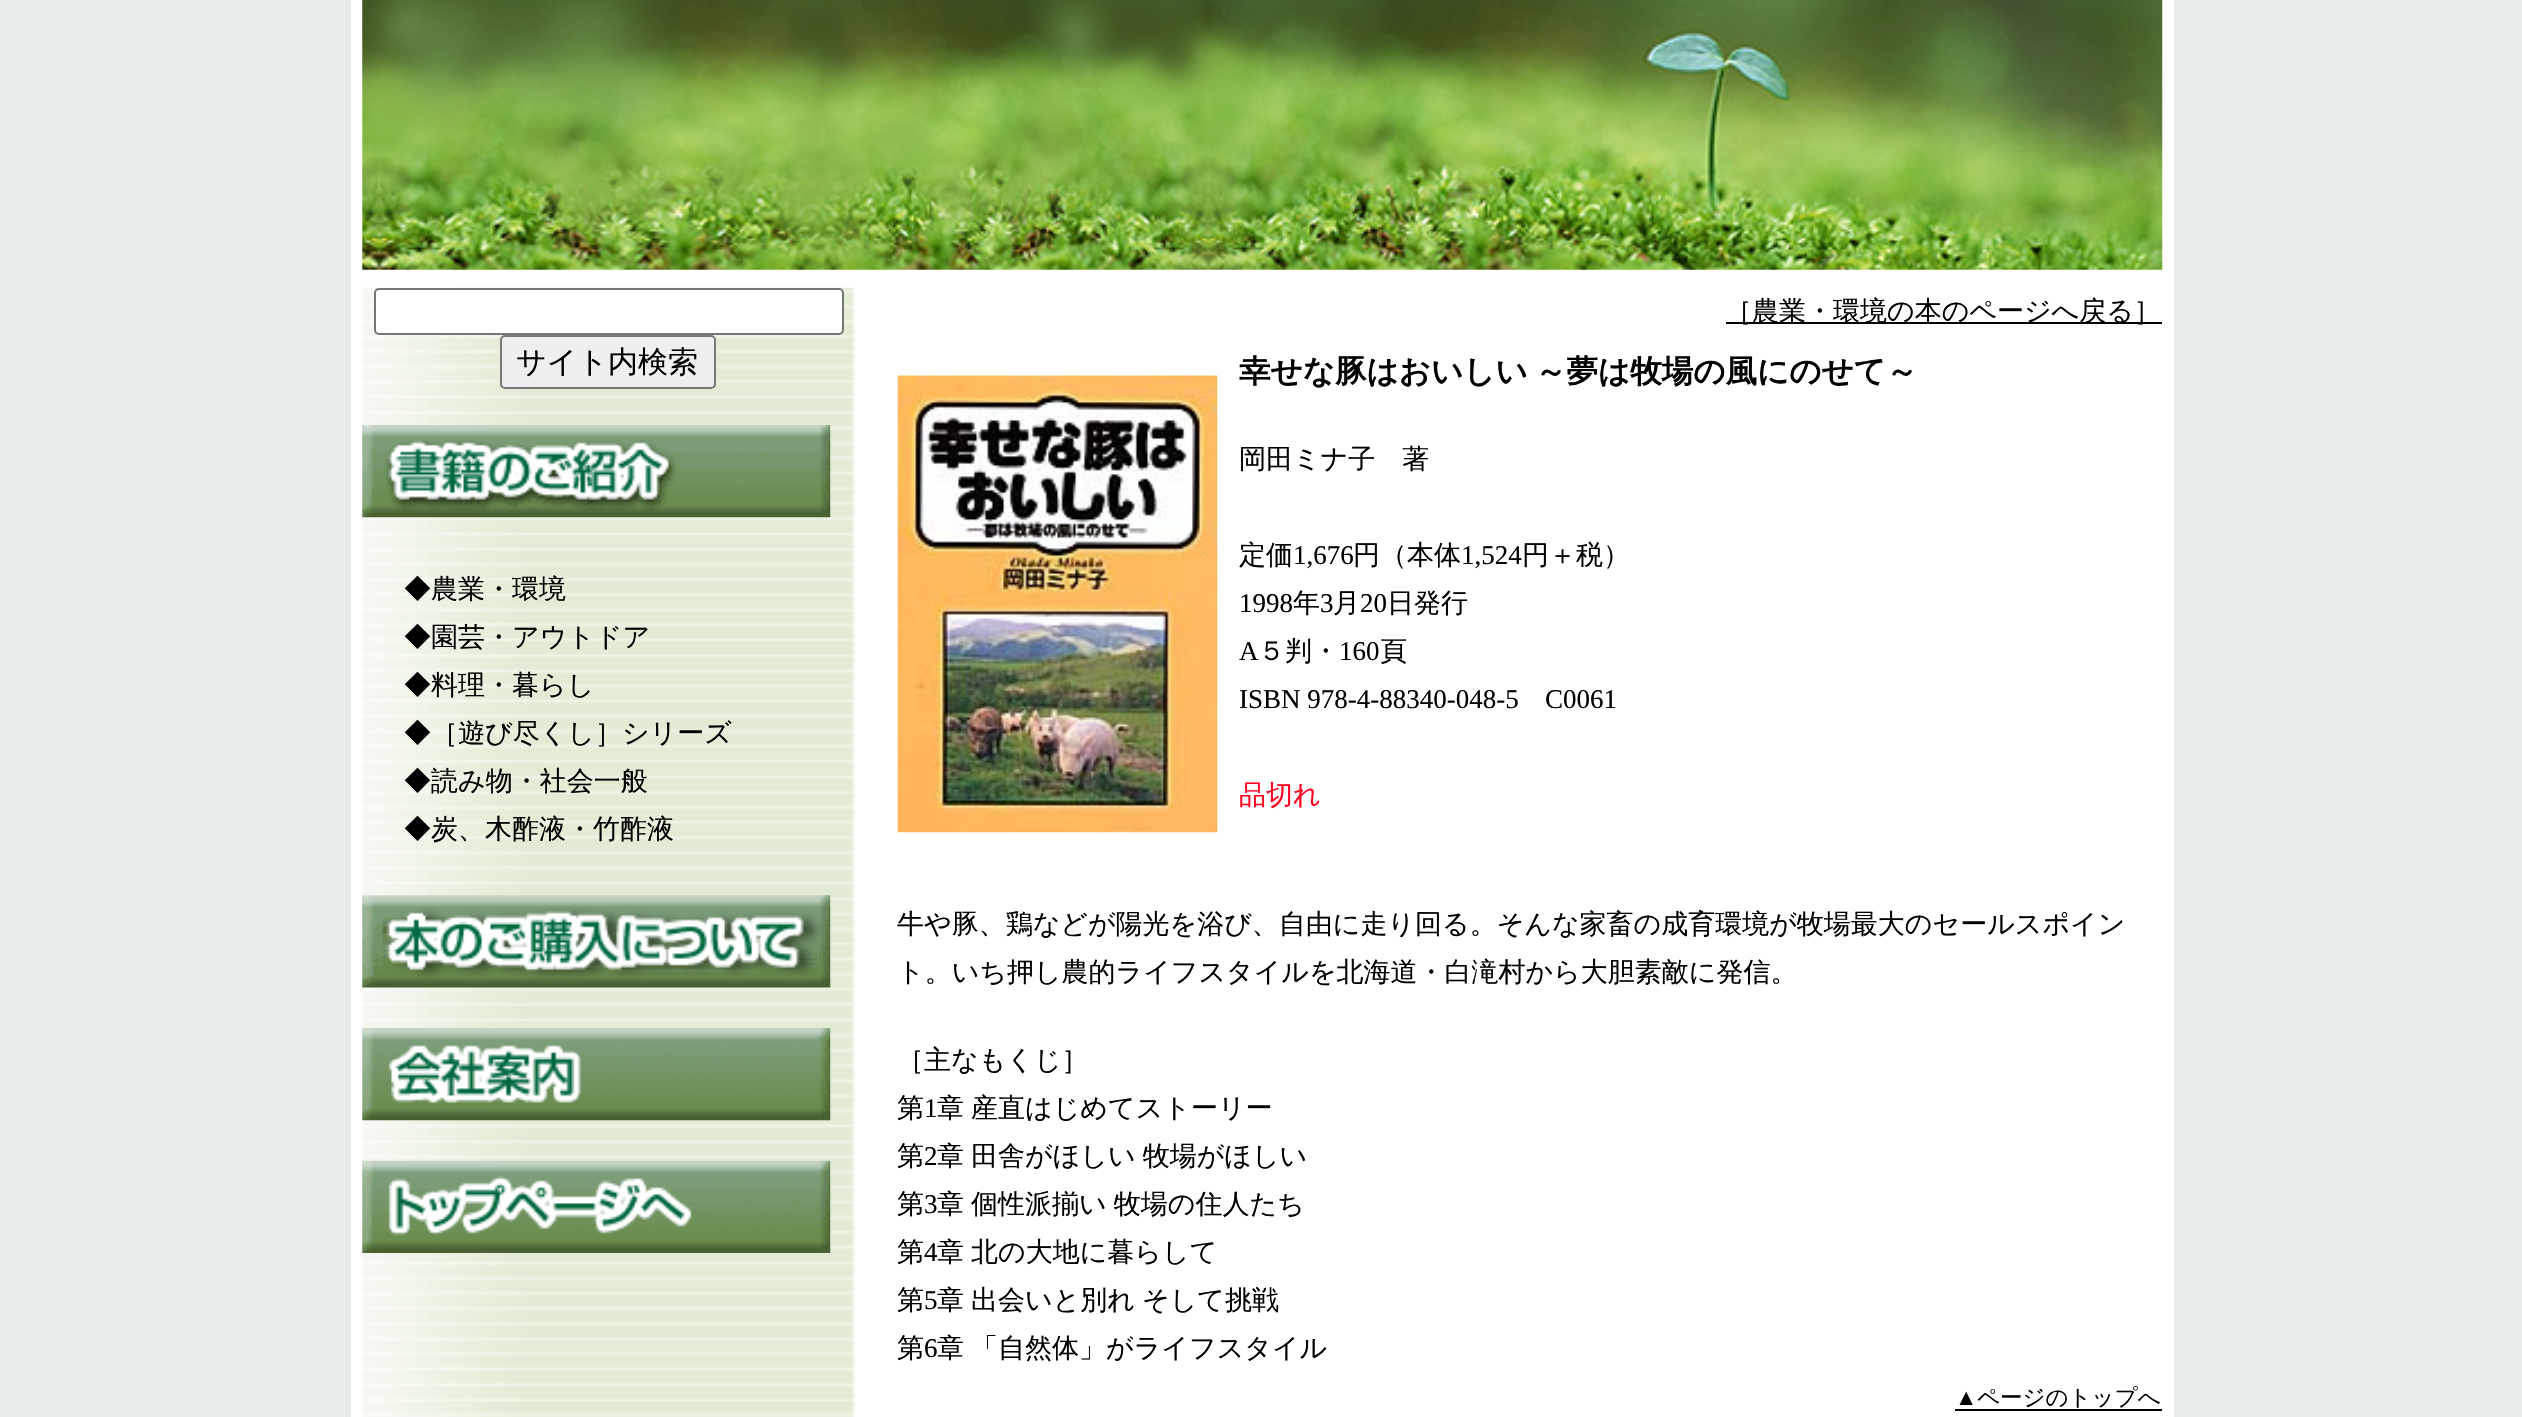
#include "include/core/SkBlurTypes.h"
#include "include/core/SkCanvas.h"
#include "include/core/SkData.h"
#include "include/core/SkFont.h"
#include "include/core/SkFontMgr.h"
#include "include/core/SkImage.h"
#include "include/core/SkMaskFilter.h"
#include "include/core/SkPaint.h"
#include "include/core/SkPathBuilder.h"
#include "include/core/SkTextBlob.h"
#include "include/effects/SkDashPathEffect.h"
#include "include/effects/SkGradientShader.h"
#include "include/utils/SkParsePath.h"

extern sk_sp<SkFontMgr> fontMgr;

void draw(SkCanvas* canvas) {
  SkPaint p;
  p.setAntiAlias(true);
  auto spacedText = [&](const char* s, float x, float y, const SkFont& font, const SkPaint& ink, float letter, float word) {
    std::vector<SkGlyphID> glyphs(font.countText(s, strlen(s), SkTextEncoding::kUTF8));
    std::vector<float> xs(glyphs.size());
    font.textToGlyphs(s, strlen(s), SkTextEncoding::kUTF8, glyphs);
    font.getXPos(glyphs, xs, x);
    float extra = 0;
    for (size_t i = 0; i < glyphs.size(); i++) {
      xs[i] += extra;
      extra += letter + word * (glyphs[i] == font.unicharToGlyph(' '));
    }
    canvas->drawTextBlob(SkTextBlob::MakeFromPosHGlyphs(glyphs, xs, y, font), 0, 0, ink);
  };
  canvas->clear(SkColorSetRGB(230, 237, 232));
  p.setColor(SK_ColorWHITE);
  canvas->drawRect(SkRect::MakeLTRB(351, 0, 2174, 1417), p);
  canvas->drawImageRect(SkImages::DeferredFromEncodedData(SkData::MakeFromFileName("images/1.png")), SkRect::MakeLTRB(362, 0, 2163, 270), SkSamplingOptions());
  canvas->drawImageRect(SkImages::DeferredFromEncodedData(SkData::MakeFromFileName("images/2.png")), SkRect::MakeLTRB(362, 287, 855, 1417), SkSamplingOptions());
  canvas->drawRoundRect(SkRect::MakeLTRB(375, 289, 843, 334), 4, 4, p);
  p.setStyle(SkPaint::kStroke_Style);
  p.setStrokeWidth(2);
  p.setColor(SkColorSetRGB(118, 118, 118));
  canvas->drawRoundRect(SkRect::MakeLTRB(375, 289, 843, 334), 4, 4, p);
  p.setStyle(SkPaint::kFill_Style);
  p.setColor(SkColorSetRGB(239, 239, 239));
  canvas->drawRoundRect(SkRect::MakeLTRB(501, 336, 715, 388), 4, 4, p);
  p.setStyle(SkPaint::kStroke_Style);
  p.setColor(SkColorSetRGB(118, 118, 118));
  canvas->drawRoundRect(SkRect::MakeLTRB(501, 336, 715, 388), 4, 4, p);
  canvas->drawImageRect(SkImages::DeferredFromEncodedData(SkData::MakeFromFileName("images/3.png")), SkRect::MakeLTRB(362, 425, 831, 518), SkSamplingOptions());
  canvas->drawImageRect(SkImages::DeferredFromEncodedData(SkData::MakeFromFileName("images/4.png")), SkRect::MakeLTRB(362, 895, 831, 988), SkSamplingOptions());
  canvas->drawImageRect(SkImages::DeferredFromEncodedData(SkData::MakeFromFileName("images/5.png")), SkRect::MakeLTRB(362, 1028, 831, 1121), SkSamplingOptions());
  canvas->drawImageRect(SkImages::DeferredFromEncodedData(SkData::MakeFromFileName("images/6.png")), SkRect::MakeLTRB(362, 1160, 831, 1253), SkSamplingOptions());
  p.setStyle(SkPaint::kFill_Style);
  p.setColor(SK_ColorBLACK);
  canvas->drawRect(SkRect::MakeLTRB(1726, 322, 2162, 324), p);
  canvas->drawImageRect(SkImages::DeferredFromEncodedData(SkData::MakeFromFileName("images/7.png")), SkRect::MakeLTRB(897, 375, 1218, 833), SkSamplingOptions());
  canvas->drawRect(SkRect::MakeLTRB(1955, 1409, 2162, 1411), p);
  SkFont font1(fontMgr->matchFamilyStyle("WenQuanYi Zen Hei", SkFontStyle(500, SkFontStyle::kNormal_Width, SkFontStyle::kUpright_Slant)), 30);
  font1.setSubpixel(true);
  canvas->drawString("サイト内検索", 516, 372, font1, p);
  SkFont font2(fontMgr->matchFamilyStyle("WenQuanYi Zen Hei", SkFontStyle(500, SkFontStyle::kNormal_Width, SkFontStyle::kUpright_Slant)), 27);
  font2.setSubpixel(true);
  canvas->drawString("◆農業・環境", 404, 598, font2, p);
  canvas->drawString("◆園芸・アウトドア", 404, 646, font2, p);
  canvas->drawString("◆料理・暮らし", 404, 694, font2, p);
  canvas->drawString("◆［遊び尽くし］シリーズ", 404, 742, font2, p);
  canvas->drawString("◆読み物・社会一般", 404, 790, font2, p);
  canvas->drawString("◆炭、木酢液・竹酢液", 404, 838, font2, p);
  canvas->drawString("［農業・環境の本のページへ戻る］", 1725, 320, font2, p);
  SkFont font3(fontMgr->matchFamilyStyle("WenQuanYi Zen Hei", SkFontStyle::Bold()), 31.5f);
  font3.setSubpixel(true);
  spacedText("幸せな豚はおいしい ～夢は牧場の風にのせて～", 1239, 382, font3, p, 0, -2);
  canvas->drawString("岡田ミナ子　著", 1239, 468, font2, p);
  canvas->drawString("定価", 1239, 564, font2, p);
  SkFont font4(fontMgr->matchFamilyStyle("Liberation Serif", SkFontStyle::Normal()), 27);
  font4.setSubpixel(true);
  canvas->drawString("1,676", 1293, 564, font4, p);
  canvas->drawString("円（本体", 1353, 564, font2, p);
  canvas->drawString("1,524", 1461, 564, font4, p);
  canvas->drawString("円＋税）", 1522, 564, font2, p);
  canvas->drawString("1998", 1239, 612, font4, p);
  canvas->drawString("年", 1293, 612, font2, p);
  canvas->drawString("3", 1320, 612, font4, p);
  canvas->drawString("月", 1333, 612, font2, p);
  canvas->drawString("20", 1360, 612, font4, p);
  canvas->drawString("日発行", 1387, 612, font2, p);
  canvas->drawString("A", 1239, 660, font4, p);
  canvas->drawString("５判・", 1258, 660, font2, p);
  canvas->drawString("160", 1339, 660, font4, p);
  canvas->drawString("頁", 1380, 660, font2, p);
  canvas->drawString("ISBN 978-4-88340-048-5", 1239, 708, font4, p);
  canvas->drawString("C0061", 1545, 708, font4, p);
  p.setColor(SkColorSetRGB(255, 0, 33));
  canvas->drawString("品切れ", 1239, 804, font2, p);
  p.setColor(SK_ColorBLACK);
  canvas->drawString("牛や豚、鶏などが陽光を浴び、自由に走り回る。そんな家畜の成育環境が牧場最大のセールスポイン", 897, 933, font2, p);
  canvas->drawString("ト。いち押し農的ライフスタイルを北海道・白滝村から大胆素敵に発信。", 897, 981, font2, p);
  canvas->drawString("［主なもくじ］", 897, 1069, font2, p);
  canvas->drawString("第", 897, 1117, font2, p);
  canvas->drawString("1", 924, 1117, font4, p);
  spacedText("章 産直はじめてストーリー", 937, 1117, font2, p, 0, -1);
  canvas->drawString("第", 897, 1165, font2, p);
  canvas->drawString("2", 924, 1165, font4, p);
  spacedText("章 田舎がほしい 牧場がほしい", 937, 1165, font2, p, 0, -1);
  canvas->drawString("第", 897, 1213, font2, p);
  canvas->drawString("3", 924, 1213, font4, p);
  spacedText("章 個性派揃い 牧場の住人たち", 937, 1213, font2, p, 0, -1);
  canvas->drawString("第", 897, 1261, font2, p);
  canvas->drawString("4", 924, 1261, font4, p);
  spacedText("章 北の大地に暮らして", 937, 1261, font2, p, 0, -1);
  canvas->drawString("第", 897, 1309, font2, p);
  canvas->drawString("5", 924, 1309, font4, p);
  spacedText("章 出会いと別れ そして挑戦", 937, 1309, font2, p, 0, -1);
  canvas->drawString("第", 897, 1357, font2, p);
  canvas->drawString("6", 924, 1357, font4, p);
  spacedText("章 「自然体」がライフスタイル", 937, 1357, font2, p, 0, -1);
  SkFont font5(fontMgr->matchFamilyStyle("Liberation Serif", SkFontStyle::Normal()), 22.5f);
  font5.setSubpixel(true);
  canvas->drawString("▲", 1955, 1405, font5, p);
  SkFont font6(fontMgr->matchFamilyStyle("WenQuanYi Zen Hei", SkFontStyle(500, SkFontStyle::kNormal_Width, SkFontStyle::kUpright_Slant)), 22.5f);
  font6.setSubpixel(true);
  canvas->drawString("ページのトップへ", 1977, 1405, font6, p);
}
